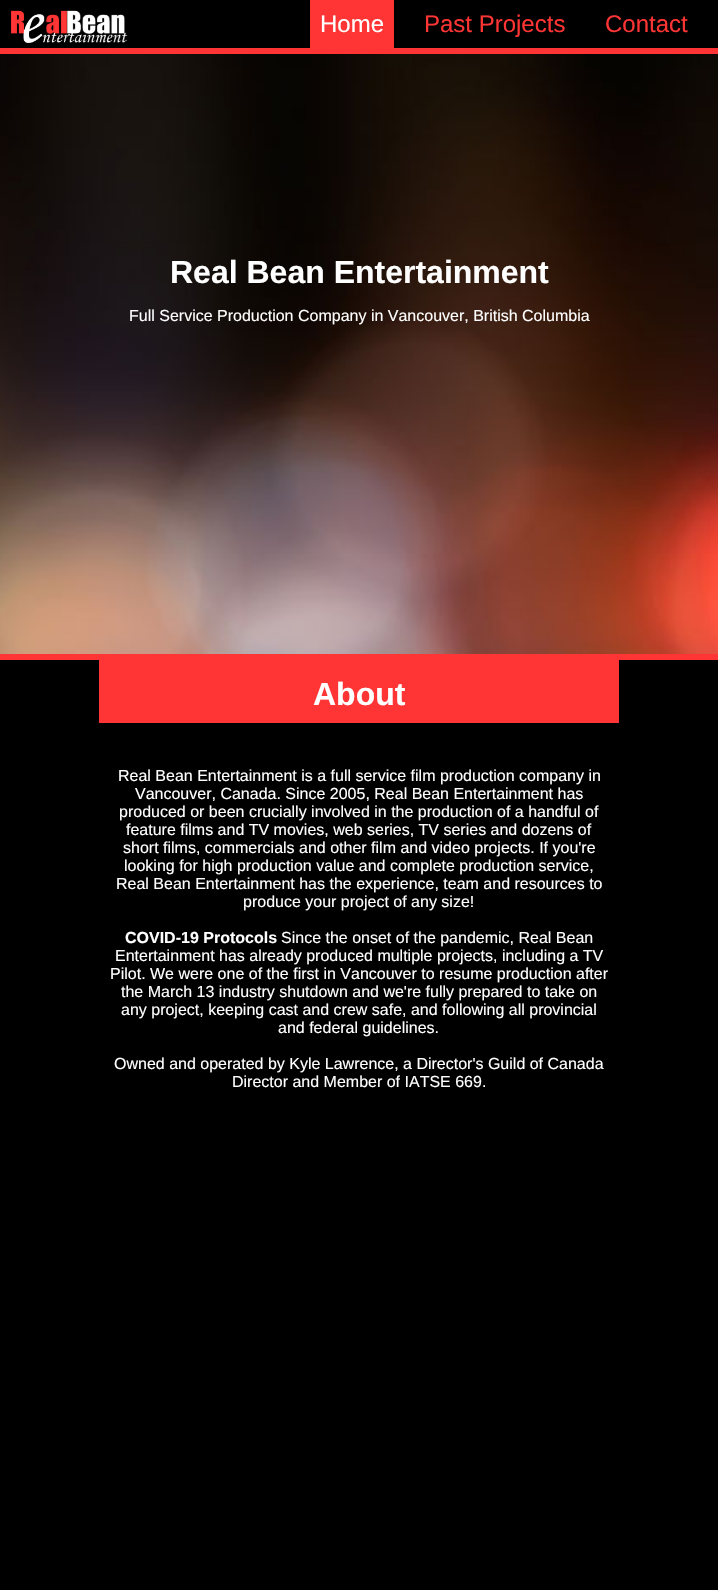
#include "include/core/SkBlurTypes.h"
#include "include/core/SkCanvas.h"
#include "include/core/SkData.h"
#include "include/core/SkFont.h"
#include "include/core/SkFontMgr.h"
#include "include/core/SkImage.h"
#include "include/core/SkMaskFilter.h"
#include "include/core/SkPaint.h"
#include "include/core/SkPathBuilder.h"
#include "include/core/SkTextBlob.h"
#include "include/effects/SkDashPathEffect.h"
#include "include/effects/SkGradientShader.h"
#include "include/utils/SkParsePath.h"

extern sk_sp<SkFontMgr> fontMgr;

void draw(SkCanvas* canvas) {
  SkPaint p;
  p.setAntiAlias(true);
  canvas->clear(SK_ColorBLACK);
  p.setColor(SkColorSetRGB(255, 52, 52));
  canvas->drawRect(SkRect::MakeLTRB(0, 48, 718, 54), p);
  canvas->drawImageRect(SkImages::DeferredFromEncodedData(SkData::MakeFromFileName("images/1.png")), SkRect::MakeLTRB(11, 10, 128, 43), SkSamplingOptions());
  canvas->drawRect(SkRect::MakeLTRB(310, 0, 394, 48), p);
  canvas->drawImageRect(SkImages::DeferredFromEncodedData(SkData::MakeFromFileName("images/2.png")), SkRect::MakeLTRB(0, 54, 718, 654), SkSamplingOptions());
  canvas->drawRect(SkRect::MakeLTRB(0, 654, 718, 660), p);
  canvas->drawRect(SkRect::MakeLTRB(99, 660, 619, 723), p);
  SkFont font1(fontMgr->matchFamilyStyle("Liberation Sans", SkFontStyle::Normal()), 24);
  font1.setSubpixel(true);
  p.setColor(SK_ColorWHITE);
  canvas->drawString("Home", 320, 32, font1, p);
  p.setColor(SkColorSetRGB(255, 52, 52));
  canvas->drawString("Past Projects", 424, 32, font1, p);
  canvas->drawString("Contact", 605, 32, font1, p);
  SkFont font2(fontMgr->matchFamilyStyle("Liberation Sans", SkFontStyle::Bold()), 32);
  font2.setSubpixel(true);
  p.setColor(SK_ColorWHITE);
  canvas->drawString("Real Bean Entertainment", 170, 283, font2, p);
  SkFont font3(fontMgr->matchFamilyStyle("Liberation Sans", SkFontStyle::Normal()), 16);
  font3.setSubpixel(true);
  canvas->drawString("Full Service Production Company in Vancouver, British Columbia", 129, 321, font3, p);
  canvas->drawString("About", 313, 705, font2, p);
  canvas->drawString("Real Bean Entertainment is a full service film production company in", 118, 781, font3, p);
  canvas->drawString("Vancouver, Canada. Since 2005, Real Bean Entertainment has", 135, 799, font3, p);
  canvas->drawString("produced or been crucially involved in the production of a handful of", 119, 817, font3, p);
  canvas->drawString("feature films and TV movies, web series, TV series and dozens of", 126, 835, font3, p);
  canvas->drawString("short films, commercials and other film and video projects. If you're", 123, 853, font3, p);
  canvas->drawString("looking for high production value and complete production service,", 124, 871, font3, p);
  canvas->drawString("Real Bean Entertainment has the experience, team and resources to", 116, 889, font3, p);
  canvas->drawString("produce your project of any size!", 243, 907, font3, p);
  SkFont font4(fontMgr->matchFamilyStyle("Liberation Sans", SkFontStyle::Bold()), 16);
  font4.setSubpixel(true);
  canvas->drawString("COVID-19 Protocols", 125, 943, font4, p);
  canvas->drawString("Since the onset of the pandemic, Real Bean", 281, 943, font3, p);
  canvas->drawString("Entertainment has already produced multiple projects, including a TV", 115, 961, font3, p);
  canvas->drawString("Pilot. We were one of the first in Vancouver to resume production after", 110, 979, font3, p);
  canvas->drawString("the March 13 industry shutdown and we're fully prepared to take on", 121, 997, font3, p);
  canvas->drawString("any project, keeping cast and crew safe, and following all provincial", 121, 1015, font3, p);
  canvas->drawString("and federal guidelines.", 278, 1033, font3, p);
  canvas->drawString("Owned and operated by Kyle Lawrence, a Director's Guild of Canada", 114, 1069, font3, p);
  canvas->drawString("Director and Member of IATSE 669.", 232, 1087, font3, p);
}
